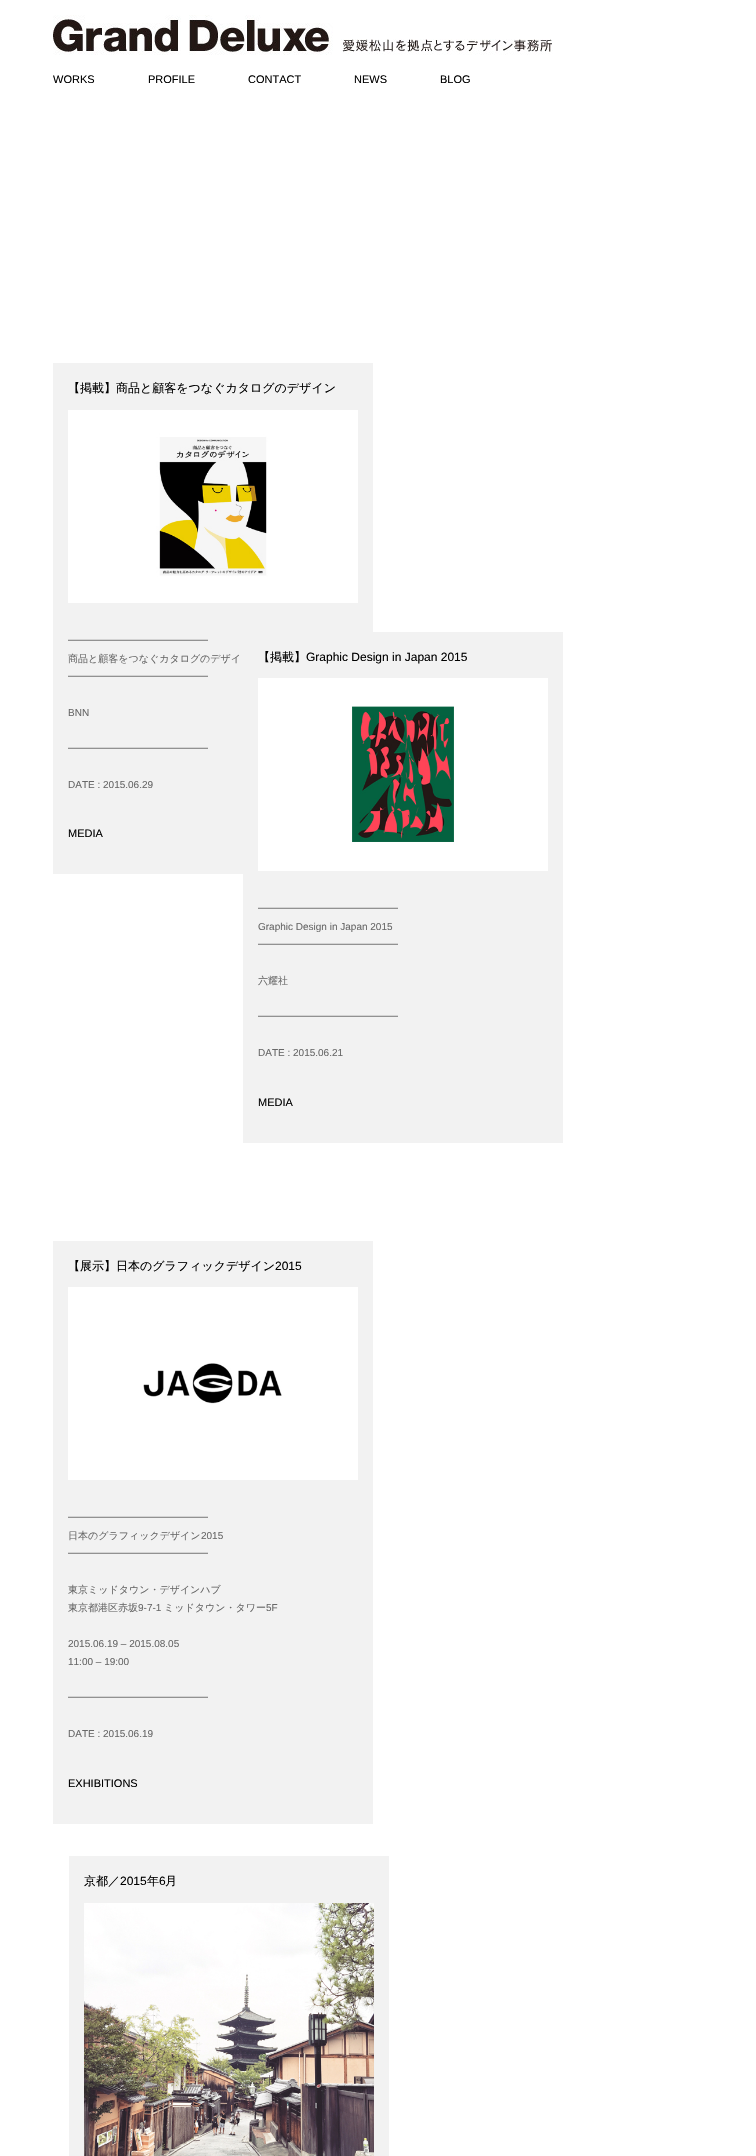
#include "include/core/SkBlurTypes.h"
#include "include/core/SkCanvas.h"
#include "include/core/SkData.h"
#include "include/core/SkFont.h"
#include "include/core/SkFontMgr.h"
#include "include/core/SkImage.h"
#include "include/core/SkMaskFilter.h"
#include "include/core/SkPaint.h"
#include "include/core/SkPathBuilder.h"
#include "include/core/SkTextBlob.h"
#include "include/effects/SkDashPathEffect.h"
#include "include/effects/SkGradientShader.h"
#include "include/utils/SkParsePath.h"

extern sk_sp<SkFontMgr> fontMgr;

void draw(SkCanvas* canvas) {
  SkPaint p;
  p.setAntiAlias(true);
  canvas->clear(SK_ColorWHITE);
  canvas->drawImageRect(SkImages::DeferredFromEncodedData(SkData::MakeFromFileName("images/1.png")), SkRect::MakeLTRB(53, 15, 553, 55), SkSamplingOptions());
  p.setColor(SkColorSetRGB(242, 242, 242));
  canvas->drawRect(SkRect::MakeLTRB(53, 363, 373, 874), p);
  canvas->drawImageRect(SkImages::DeferredFromEncodedData(SkData::MakeFromFileName("images/2.png")), SkRect::MakeLTRB(68, 410, 358, 603), SkSamplingOptions());
  canvas->drawRect(SkRect::MakeLTRB(243, 632, 563, 1143), p);
  canvas->drawImageRect(SkImages::DeferredFromEncodedData(SkData::MakeFromFileName("images/3.png")), SkRect::MakeLTRB(258, 678, 548, 871), SkSamplingOptions());
  canvas->drawRect(SkRect::MakeLTRB(53, 1241, 373, 1824), p);
  canvas->drawImageRect(SkImages::DeferredFromEncodedData(SkData::MakeFromFileName("images/4.png")), SkRect::MakeLTRB(68, 1287, 358, 1480), SkSamplingOptions());
  canvas->drawRect(SkRect::MakeLTRB(69, 1856, 389, 2156), p);
  canvas->drawImageRect(SkImages::DeferredFromEncodedData(SkData::MakeFromFileName("images/5.png")), SkRect::MakeLTRB(84, 1903, 374, 2156), SkSamplingOptions());
  SkFont font1(fontMgr->matchFamilyStyle("Liberation Sans", SkFontStyle::Normal()), 11);
  font1.setSubpixel(true);
  p.setColor(SK_ColorBLACK);
  canvas->drawString("WORKS", 53, 83, font1, p);
  canvas->drawString("PROFILE", 148, 83, font1, p);
  canvas->drawString("CONTACT", 248, 83, font1, p);
  canvas->drawString("NEWS", 354, 83, font1, p);
  canvas->drawString("BLOG", 440, 83, font1, p);
  SkFont font2(fontMgr->matchFamilyStyle("WenQuanYi Zen Hei", SkFontStyle(500, SkFontStyle::kNormal_Width, SkFontStyle::kUpright_Slant)), 12);
  font2.setSubpixel(true);
  canvas->drawString("【掲載】商品と顧客をつなぐカタログのデザイン", 68, 392, font2, p);
  SkFont font3(fontMgr->matchFamilyStyle("WenQuanYi Zen Hei", SkFontStyle(500, SkFontStyle::kNormal_Width, SkFontStyle::kUpright_Slant)), 10);
  font3.setSubpixel(true);
  p.setColor(SkColorSetRGB(105, 105, 105));
  canvas->drawString("━━━━━━━━━━━━━━", 68, 644, font3, p);
  canvas->drawString("商品と顧客をつなぐカタログのデザイ", 68, 662, font3, p);
  canvas->drawString("━━━━━━━━━━━━━━", 68, 680, font3, p);
  SkFont font4(fontMgr->matchFamilyStyle("Liberation Sans", SkFontStyle::Normal()), 10);
  font4.setSubpixel(true);
  canvas->drawString("BNN", 68, 716, font4, p);
  canvas->drawString("━━━━━━━━━━━━━━", 68, 752, font3, p);
  canvas->drawString("DATE : 2015.06.29", 68, 788, font4, p);
  p.setColor(SK_ColorBLACK);
  canvas->drawString("MEDIA", 68, 837, font1, p);
  canvas->drawString("【掲載】", 258, 661, font2, p);
  SkFont font5(fontMgr->matchFamilyStyle("Liberation Sans", SkFontStyle::Normal()), 12);
  font5.setSubpixel(true);
  canvas->drawString("Graphic Design in Japan 2015", 306, 661, font5, p);
  p.setColor(SkColorSetRGB(105, 105, 105));
  canvas->drawString("━━━━━━━━━━━━━━", 258, 912, font3, p);
  canvas->drawString("Graphic Design in Japan 2015", 258, 930, font4, p);
  canvas->drawString("━━━━━━━━━━━━━━", 258, 948, font3, p);
  canvas->drawString("六耀社", 258, 984, font3, p);
  canvas->drawString("━━━━━━━━━━━━━━", 258, 1020, font3, p);
  canvas->drawString("DATE : 2015.06.21", 258, 1056, font4, p);
  p.setColor(SK_ColorBLACK);
  canvas->drawString("MEDIA", 258, 1106, font1, p);
  canvas->drawString("【展示】日本のグラフィックデザイン", 68, 1270, font2, p);
  canvas->drawString("2015", 275, 1270, font5, p);
  p.setColor(SkColorSetRGB(105, 105, 105));
  canvas->drawString("━━━━━━━━━━━━━━", 68, 1521, font3, p);
  canvas->drawString("日本のグラフィックデザイン", 68, 1539, font3, p);
  canvas->drawString("2015", 201, 1539, font4, p);
  canvas->drawString("━━━━━━━━━━━━━━", 68, 1557, font3, p);
  canvas->drawString("東京ミッドタウン・デザインハブ", 68, 1593, font3, p);
  canvas->drawString("東京都港区赤坂", 68, 1611, font3, p);
  canvas->drawString("9-7-1", 138, 1611, font4, p);
  canvas->drawString("ミッドタウン・タワー", 164, 1611, font3, p);
  canvas->drawString("5F", 266, 1611, font4, p);
  canvas->drawString("2015.06.19 – 2015.08.05", 68, 1647, font4, p);
  canvas->drawString("11:00 – 19:00", 68, 1665, font4, p);
  canvas->drawString("━━━━━━━━━━━━━━", 68, 1701, font3, p);
  canvas->drawString("DATE : 2015.06.19", 68, 1737, font4, p);
  p.setColor(SK_ColorBLACK);
  canvas->drawString("EXHIBITIONS", 68, 1787, font1, p);
  canvas->drawString("京都／", 84, 1885, font2, p);
  canvas->drawString("2015", 120, 1885, font5, p);
  canvas->drawString("年", 147, 1885, font2, p);
  canvas->drawString("6", 159, 1885, font5, p);
  canvas->drawString("月", 165, 1885, font2, p);
}
